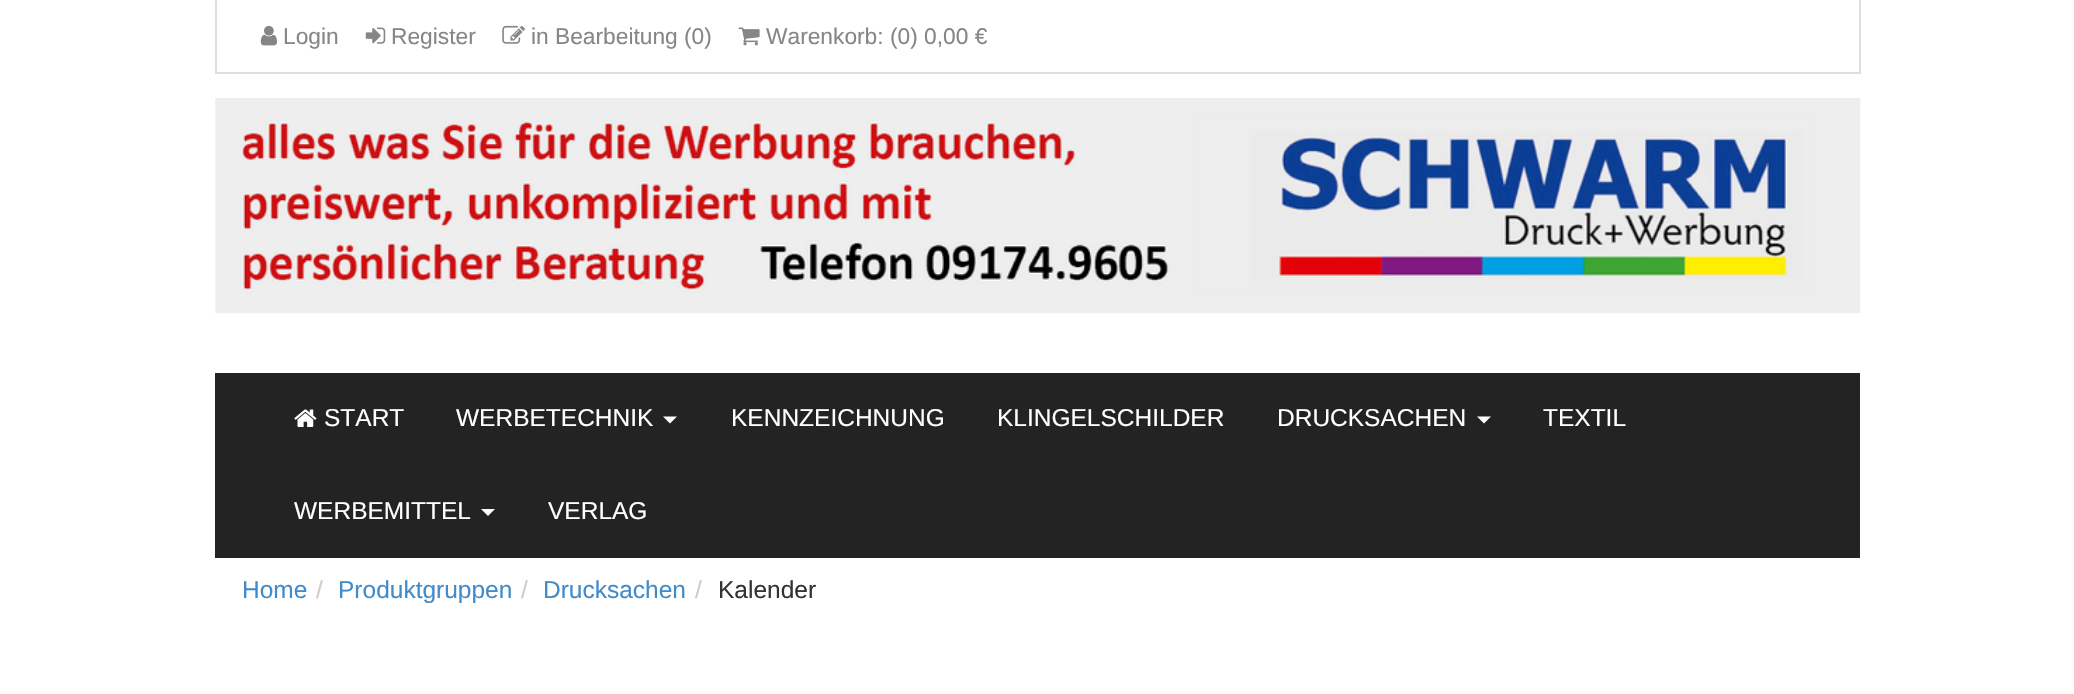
#include "include/core/SkBlurTypes.h"
#include "include/core/SkCanvas.h"
#include "include/core/SkData.h"
#include "include/core/SkFont.h"
#include "include/core/SkFontMgr.h"
#include "include/core/SkImage.h"
#include "include/core/SkMaskFilter.h"
#include "include/core/SkPaint.h"
#include "include/core/SkPathBuilder.h"
#include "include/core/SkTextBlob.h"
#include "include/effects/SkDashPathEffect.h"
#include "include/effects/SkGradientShader.h"
#include "include/utils/SkParsePath.h"

extern sk_sp<SkFontMgr> fontMgr;

void draw(SkCanvas* canvas) {
  SkPaint p;
  p.setAntiAlias(true);
  canvas->clear(SK_ColorWHITE);
  p.setColor(SkColorSetRGB(222, 222, 222));
  canvas->drawRect(SkRect::MakeLTRB(1859, 0, 1861, 74), p);
  canvas->drawRect(SkRect::MakeLTRB(215, 72, 1860, 74), p);
  canvas->drawRect(SkRect::MakeLTRB(215, 0, 217, 74), p);
  canvas->drawImageRect(SkImages::DeferredFromEncodedData(SkData::MakeFromFileName("images/1.png")), SkRect::MakeLTRB(260, 25, 277, 46), SkSamplingOptions());
  canvas->drawImageRect(SkImages::DeferredFromEncodedData(SkData::MakeFromFileName("images/2.png")), SkRect::MakeLTRB(365, 27, 386, 44), SkSamplingOptions());
  canvas->drawImageRect(SkImages::DeferredFromEncodedData(SkData::MakeFromFileName("images/3.png")), SkRect::MakeLTRB(502, 25, 525, 44), SkSamplingOptions());
  canvas->drawImageRect(SkImages::DeferredFromEncodedData(SkData::MakeFromFileName("images/4.png")), SkRect::MakeLTRB(738, 27, 760, 46), SkSamplingOptions());
  canvas->drawImageRect(SkImages::DeferredFromEncodedData(SkData::MakeFromFileName("images/5.png")), SkRect::MakeLTRB(215, 98, 1861, 314), SkSamplingOptions());
  p.setColor(SkColorSetRGB(35, 35, 35));
  canvas->drawRect(SkRect::MakeLTRB(215, 373, 1860, 558), p);
  canvas->drawImageRect(SkImages::DeferredFromEncodedData(SkData::MakeFromFileName("images/6.png")), SkRect::MakeLTRB(294, 409, 317, 427), SkSamplingOptions());
  p.setColor(SK_ColorWHITE);
  canvas->drawPath(SkPathBuilder().moveTo(663, 416.5f).lineTo(677, 416.5f).lineTo(670, 423.5f).close().detach(), p);
  canvas->drawPath(SkPathBuilder().moveTo(1477, 416.5f).lineTo(1491, 416.5f).lineTo(1484, 423.5f).close().detach(), p);
  canvas->drawPath(SkPathBuilder().moveTo(481, 509).lineTo(495, 509).lineTo(488, 516).close().detach(), p);
  SkFont font1(fontMgr->matchFamilyStyle("Liberation Sans", SkFontStyle::Normal()), 22.75f);
  font1.setSubpixel(true);
  p.setColor(SkColorSetRGB(134, 134, 134));
  canvas->drawString("Login", 283, 44, font1, p);
  canvas->drawString("Register", 391, 44, font1, p);
  canvas->drawString("in Bearbeitung (0)", 531, 44, font1, p);
  canvas->drawString("Warenkorb: (0) 0,00 €", 766, 44, font1, p);
  SkFont font2(fontMgr->matchFamilyStyle("Liberation Sans", SkFontStyle::Normal()), 24.5f);
  font2.setSubpixel(true);
  p.setColor(SK_ColorWHITE);
  canvas->drawString("START", 324, 426, font2, p);
  canvas->drawString("WERBETECHNIK", 456, 426, font2, p);
  canvas->drawString("KENNZEICHNUNG", 731, 426, font2, p);
  canvas->drawString("KLINGELSCHILDER", 997, 426, font2, p);
  canvas->drawString("DRUCKSACHEN", 1277, 426, font2, p);
  canvas->drawString("TEXTIL", 1543, 426, font2, p);
  canvas->drawString("WERBEMITTEL", 294, 519, font2, p);
  canvas->drawString("VERLAG", 548, 519, font2, p);
  p.setColor(SkColorSetRGB(66, 139, 202));
  canvas->drawString("Home", 242, 598, font2, p);
  p.setColor(SkColorSetRGB(204, 204, 204));
  canvas->drawString("/", 316, 598, font2, p);
  p.setColor(SkColorSetRGB(66, 139, 202));
  canvas->drawString("Produktgruppen", 338, 598, font2, p);
  p.setColor(SkColorSetRGB(204, 204, 204));
  canvas->drawString("/", 521, 598, font2, p);
  p.setColor(SkColorSetRGB(66, 139, 202));
  canvas->drawString("Drucksachen", 543, 598, font2, p);
  p.setColor(SkColorSetRGB(204, 204, 204));
  canvas->drawString("/", 695, 598, font2, p);
  p.setColor(SkColorSetRGB(51, 51, 51));
  canvas->drawString("Kalender", 718, 598, font2, p);
}
